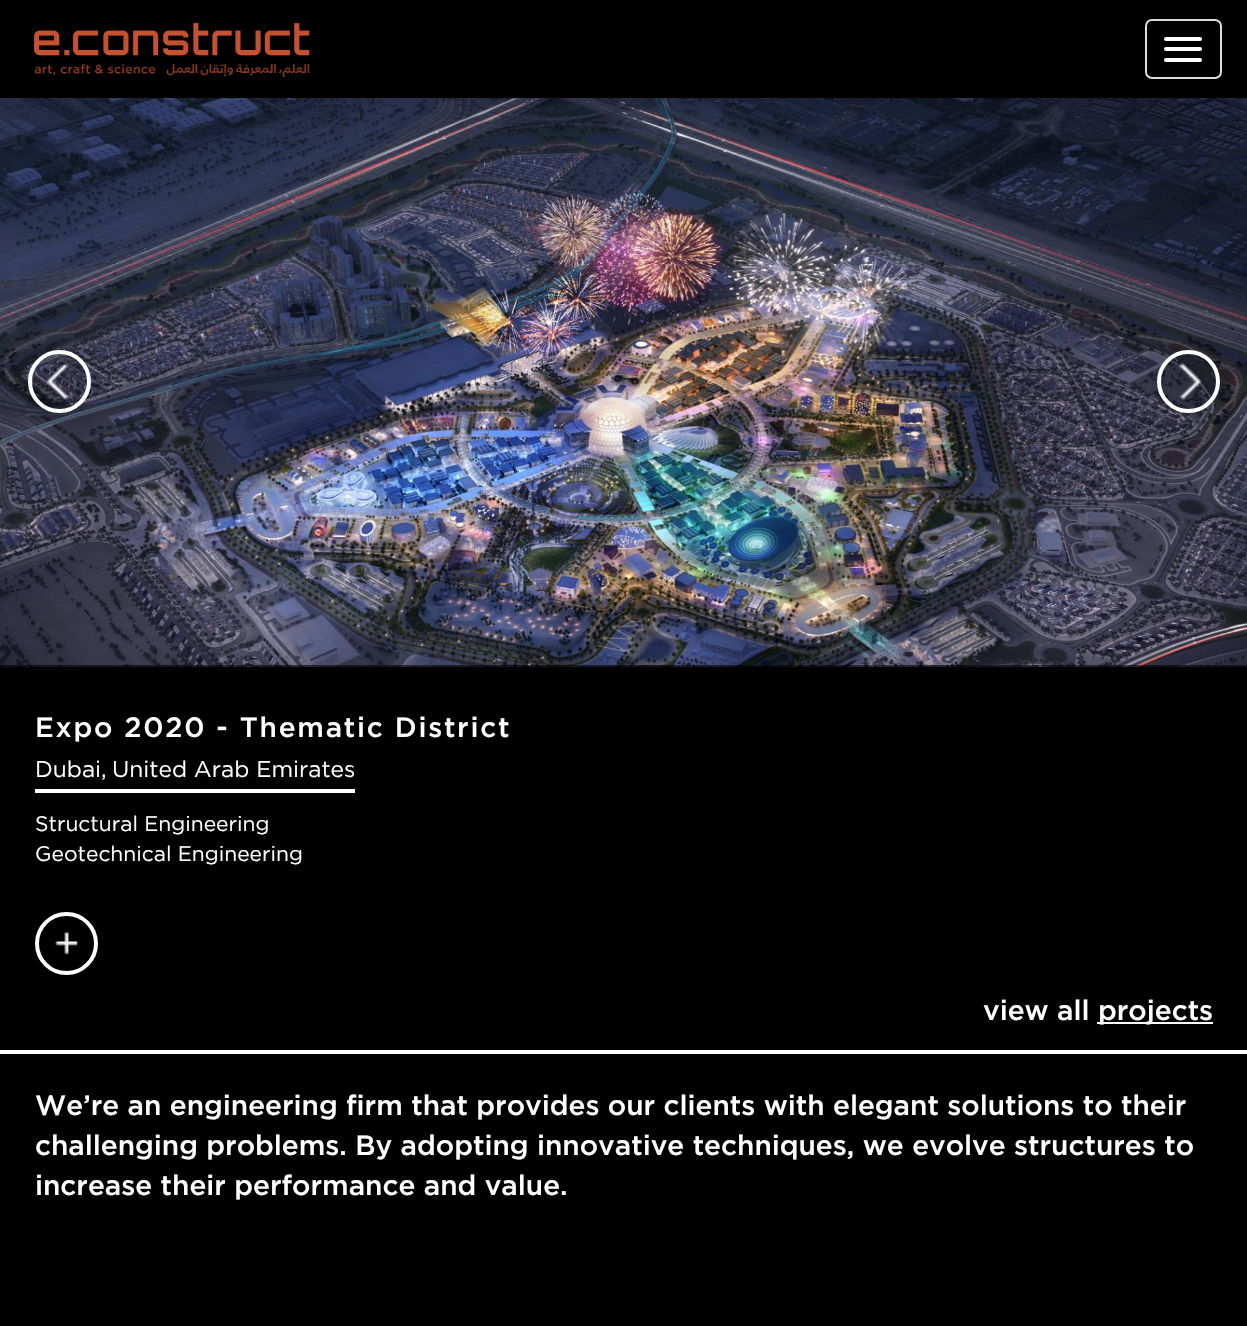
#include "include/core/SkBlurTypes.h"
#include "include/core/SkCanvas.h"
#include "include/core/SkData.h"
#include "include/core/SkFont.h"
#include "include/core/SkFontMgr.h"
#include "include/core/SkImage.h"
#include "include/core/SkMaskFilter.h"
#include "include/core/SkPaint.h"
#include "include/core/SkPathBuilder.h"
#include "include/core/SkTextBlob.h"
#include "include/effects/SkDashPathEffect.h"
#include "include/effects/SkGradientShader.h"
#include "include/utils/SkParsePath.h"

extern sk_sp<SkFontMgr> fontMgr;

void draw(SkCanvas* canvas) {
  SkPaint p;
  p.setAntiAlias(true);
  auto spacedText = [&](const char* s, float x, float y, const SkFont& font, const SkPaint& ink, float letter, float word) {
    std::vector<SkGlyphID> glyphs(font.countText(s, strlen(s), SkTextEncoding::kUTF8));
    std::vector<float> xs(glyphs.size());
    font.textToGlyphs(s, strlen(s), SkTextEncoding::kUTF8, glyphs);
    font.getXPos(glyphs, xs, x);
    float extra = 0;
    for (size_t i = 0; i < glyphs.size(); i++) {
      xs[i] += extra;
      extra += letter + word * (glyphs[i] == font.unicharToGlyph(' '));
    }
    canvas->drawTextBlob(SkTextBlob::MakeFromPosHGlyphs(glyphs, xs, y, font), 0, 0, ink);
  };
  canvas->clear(SK_ColorBLACK);
  canvas->drawImageRect(SkImages::DeferredFromEncodedData(SkData::MakeFromFileName("images/1.png")), SkRect::MakeLTRB(34, 23, 310, 78), SkSamplingOptions());
  p.setStyle(SkPaint::kStroke_Style);
  p.setStrokeWidth(2);
  p.setColor(SkColorSetRGB(221, 221, 221));
  canvas->drawRoundRect(SkRect::MakeLTRB(1146, 20, 1221, 78), 6, 6, p);
  p.setStyle(SkPaint::kFill_Style);
  p.setColor(SK_ColorWHITE);
  canvas->drawRoundRect(SkRect::MakeLTRB(1164, 37, 1202, 41), 2, 2, p);
  canvas->drawRoundRect(SkRect::MakeLTRB(1164, 47, 1202, 51), 2, 2, p);
  canvas->drawRoundRect(SkRect::MakeLTRB(1164, 58, 1202, 62), 2, 2, p);
  canvas->drawImageRect(SkImages::DeferredFromEncodedData(SkData::MakeFromFileName("images/2.png")), SkRect::MakeLTRB(0, 98, 1247, 667), SkSamplingOptions());
  p.setColor(SkColorSetARGB(26, 0, 0, 0));
  canvas->drawCircle(59.5f, 381.5f, 29.5f, p);
  p.setStyle(SkPaint::kStroke_Style);
  p.setStrokeWidth(4);
  p.setColor(SK_ColorWHITE);
  canvas->drawCircle(59.5f, 381.5f, 29.5f, p);
  canvas->drawImageRect(SkImages::DeferredFromEncodedData(SkData::MakeFromFileName("images/3.png")), SkRect::MakeLTRB(46, 363, 69, 400), SkSamplingOptions());
  p.setStyle(SkPaint::kFill_Style);
  p.setColor(SkColorSetARGB(26, 0, 0, 0));
  canvas->drawCircle(1188.5f, 381.5f, 29.5f, p);
  p.setStyle(SkPaint::kStroke_Style);
  p.setColor(SK_ColorWHITE);
  canvas->drawCircle(1188.5f, 381.5f, 29.5f, p);
  canvas->drawImageRect(SkImages::DeferredFromEncodedData(SkData::MakeFromFileName("images/4.png")), SkRect::MakeLTRB(1179, 363, 1201, 400), SkSamplingOptions());
  p.setStyle(SkPaint::kFill_Style);
  p.setColor(SkColorSetARGB(153, 0, 0, 0));
  canvas->drawRect(SkRect::MakeLTRB(0, 665, 1247, 667), p);
  p.setColor(SK_ColorWHITE);
  canvas->drawRect(SkRect::MakeLTRB(35, 789, 355, 793), p);
  canvas->drawImageRect(SkImages::DeferredFromEncodedData(SkData::MakeFromFileName("images/5.png")), SkRect::MakeLTRB(55, 932, 78, 955), SkSamplingOptions());
  p.setStyle(SkPaint::kStroke_Style);
  canvas->drawCircle(66.5f, 943.5f, 29.5f, p);
  p.setStyle(SkPaint::kFill_Style);
  canvas->drawRect(SkRect::MakeLTRB(1097, 1022, 1213, 1024), p);
  canvas->drawRect(SkRect::MakeLTRB(0, 1050, 1247, 1054), p);
  SkFont font1(fontMgr->matchFamilyStyle("Gotham", SkFontStyle(500, SkFontStyle::kNormal_Width, SkFontStyle::kUpright_Slant)), 28);
  font1.setSubpixel(true);
  spacedText("Expo 2020 - Thematic District", 35, 737, font1, p, 1.75f, 0);
  SkFont font2(fontMgr->matchFamilyStyle("Gotham", SkFontStyle::Normal()), 22.75f);
  font2.setSubpixel(true);
  canvas->drawString("Dubai,", 35, 777, font2, p);
  canvas->drawString("United Arab Emirates", 112, 777, font2, p);
  SkFont font3(fontMgr->matchFamilyStyle("Gotham", SkFontStyle::Normal()), 21);
  font3.setSubpixel(true);
  canvas->drawString("Structural Engineering", 35, 831, font3, p);
  canvas->drawString("Geotechnical Engineering", 35, 861, font3, p);
  canvas->drawString("view all", 983, 1020, font1, p);
  canvas->drawString("projects", 1098, 1020, font1, p);
  canvas->drawString("We’re an engineering firm that provides our clients with elegant solutions to their", 35, 1115, font1, p);
  canvas->drawString("challenging problems. By adopting innovative techniques, we evolve structures to", 35, 1155, font1, p);
  canvas->drawString("increase their performance and value.", 35, 1195, font1, p);
}
